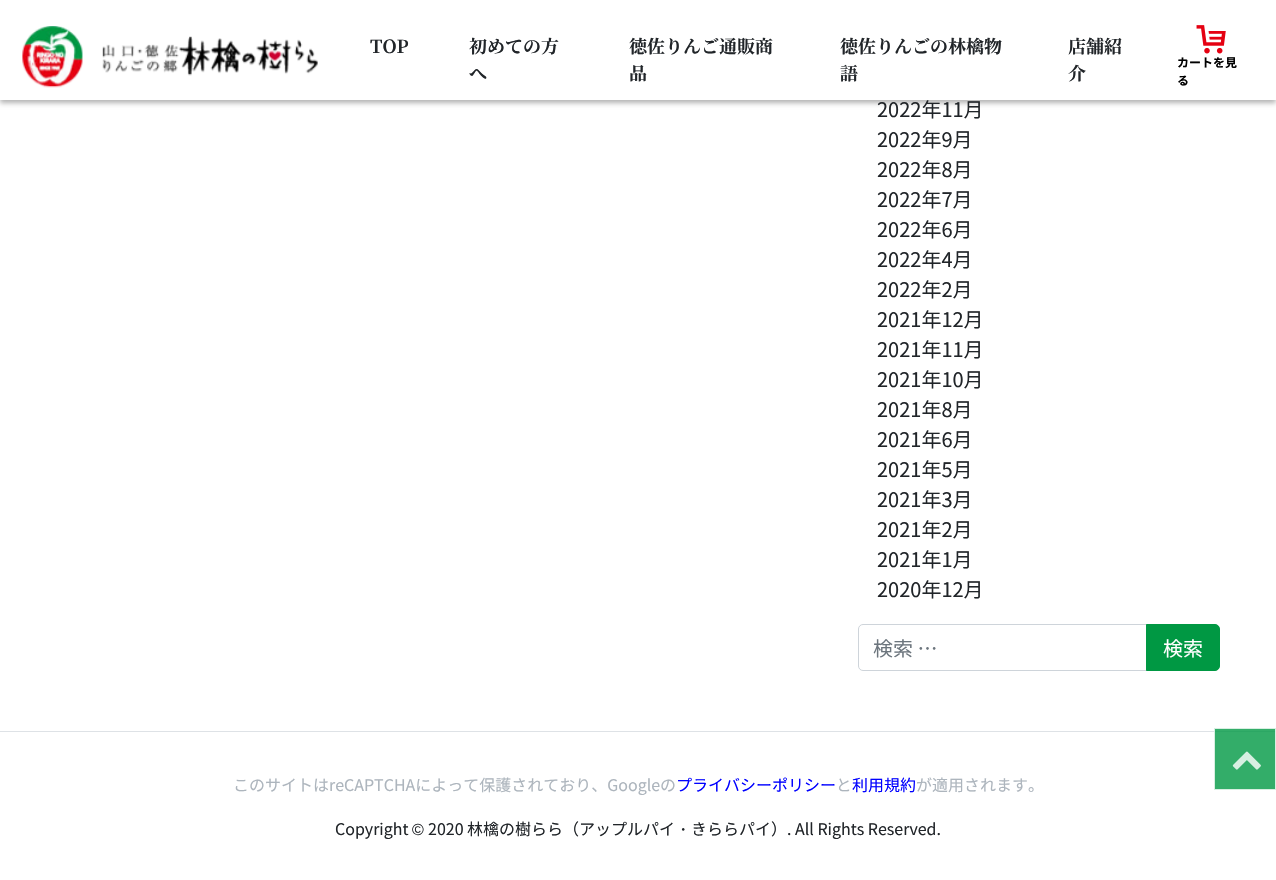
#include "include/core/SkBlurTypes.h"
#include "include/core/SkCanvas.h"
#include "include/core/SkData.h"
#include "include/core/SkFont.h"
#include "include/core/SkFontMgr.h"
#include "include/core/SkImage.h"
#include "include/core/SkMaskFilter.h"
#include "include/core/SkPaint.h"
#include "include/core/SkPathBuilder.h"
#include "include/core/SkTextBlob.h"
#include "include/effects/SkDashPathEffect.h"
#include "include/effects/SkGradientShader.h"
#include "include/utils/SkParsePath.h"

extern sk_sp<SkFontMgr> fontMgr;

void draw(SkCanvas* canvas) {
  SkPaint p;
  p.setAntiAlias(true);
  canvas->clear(SK_ColorWHITE);
  p.setColor(SkColorSetRGB(51, 173, 105));
  canvas->drawRect(SkRect::MakeLTRB(1214, 728, 1276, 790), p);
  p.setColor(SkColorSetARGB(77, 0, 0, 0));
  p.setMaskFilter(SkMaskFilter::MakeBlur(kNormal_SkBlurStyle, 2.5f));
  canvas->drawRect(SkRect::MakeLTRB(0, 3, 1276, 103), p);
  p.setMaskFilter(nullptr);
  p.setColor(SK_ColorWHITE);
  canvas->drawRect(SkRect::MakeLTRB(0, 0, 1276, 100), p);
  canvas->drawImageRect(SkImages::DeferredFromEncodedData(SkData::MakeFromFileName("images/1.png")), SkRect::MakeLTRB(22, 26, 318, 88), SkSamplingOptions());
  canvas->drawImageRect(SkImages::DeferredFromEncodedData(SkData::MakeFromFileName("images/2.png")), SkRect::MakeLTRB(1196, 25, 1226, 54), SkSamplingOptions());
  p.setStyle(SkPaint::kStroke_Style);
  p.setStrokeWidth(1);
  p.setColor(SkColorSetRGB(206, 212, 218));
  canvas->drawPath(SkPathBuilder().moveTo(863, 624.5f).lineTo(1147.5f, 624.5f).lineTo(1147.5f, 670.5f).lineTo(863, 670.5f).cubicTo(860.5f, 670.5f, 858.5f, 668.5f, 858.5f, 666).lineTo(858.5f, 629).cubicTo(858.5f, 626.5f, 860.5f, 624.5f, 863, 624.5f).close().detach(), p);
  p.setStyle(SkPaint::kFill_Style);
  p.setColor(SkColorSetRGB(0, 152, 67));
  canvas->drawPath(SkPathBuilder().moveTo(1146.5f, 624.5f).lineTo(1215, 624.5f).cubicTo(1217.5f, 624.5f, 1219.5f, 626.5f, 1219.5f, 629).lineTo(1219.5f, 666).cubicTo(1219.5f, 668.5f, 1217.5f, 670.5f, 1215, 670.5f).lineTo(1146.5f, 670.5f).close().detach(), p);
  p.setStyle(SkPaint::kStroke_Style);
  canvas->drawPath(SkPathBuilder().moveTo(1146.5f, 624.5f).lineTo(1215, 624.5f).cubicTo(1217.5f, 624.5f, 1219.5f, 626.5f, 1219.5f, 629).lineTo(1219.5f, 666).cubicTo(1219.5f, 668.5f, 1217.5f, 670.5f, 1215, 670.5f).lineTo(1146.5f, 670.5f).close().detach(), p);
  p.setStyle(SkPaint::kFill_Style);
  p.setColor(SkColorSetRGB(222, 226, 230));
  canvas->drawRect(SkRect::MakeLTRB(0, 731, 1214, 732), p);
  p.setColor(SkColorSetRGB(44, 167, 100));
  canvas->drawRect(SkRect::MakeLTRB(1214, 731, 1276, 732), p);
  p.setStyle(SkPaint::kStroke_Style);
  p.setColor(SkColorSetARGB(204, 255, 255, 255));
  canvas->drawRect(SkRect::MakeLTRB(1214.5f, 728.5f, 1275.5f, 789.5f), p);
  canvas->drawImageRect(SkImages::DeferredFromEncodedData(SkData::MakeFromFileName("images/3.png")), SkRect::MakeLTRB(1232, 751, 1261, 770), SkSamplingOptions());
  SkFont font1(fontMgr->matchFamilyStyle("Noto Serif CJK JP", SkFontStyle::Bold()), 18);
  font1.setSubpixel(true);
  p.setStyle(SkPaint::kFill_Style);
  p.setColor(SkColorSetRGB(33, 37, 41));
  canvas->drawString("TOP", 370, 53, font1, p);
  canvas->drawString("初めての方", 469, 53, font1, p);
  canvas->drawString("へ", 469, 80, font1, p);
  canvas->drawString("徳佐りんご通販商", 629, 53, font1, p);
  canvas->drawString("品", 629, 80, font1, p);
  canvas->drawString("徳佐りんごの林檎物", 840, 53, font1, p);
  canvas->drawString("語", 840, 80, font1, p);
  canvas->drawString("店舗紹", 1068, 53, font1, p);
  canvas->drawString("介", 1068, 80, font1, p);
  SkFont font2(fontMgr->matchFamilyStyle("Noto Sans CJK JP", SkFontStyle::Bold()), 12);
  font2.setSubpixel(true);
  p.setColor(SK_ColorBLACK);
  canvas->drawString("カートを見", 1177, 67, font2, p);
  canvas->drawString("る", 1177, 85, font2, p);
  SkFont font3(fontMgr->matchFamilyStyle("Noto Sans CJK JP", SkFontStyle::Normal()), 20);
  font3.setSubpixel(true);
  p.setColor(SkColorSetRGB(33, 37, 41));
  canvas->drawString("2022年11月", 877, 117, font3, p);
  canvas->drawString("2022年9月", 877, 147, font3, p);
  canvas->drawString("2022年8月", 877, 177, font3, p);
  canvas->drawString("2022年7月", 877, 207, font3, p);
  canvas->drawString("2022年6月", 877, 237, font3, p);
  canvas->drawString("2022年4月", 877, 267, font3, p);
  canvas->drawString("2022年2月", 877, 297, font3, p);
  canvas->drawString("2021年12月", 877, 327, font3, p);
  canvas->drawString("2021年11月", 877, 357, font3, p);
  canvas->drawString("2021年10月", 877, 387, font3, p);
  canvas->drawString("2021年8月", 877, 417, font3, p);
  canvas->drawString("2021年6月", 877, 447, font3, p);
  canvas->drawString("2021年5月", 877, 477, font3, p);
  canvas->drawString("2021年3月", 877, 507, font3, p);
  canvas->drawString("2021年2月", 877, 537, font3, p);
  canvas->drawString("2021年1月", 877, 567, font3, p);
  canvas->drawString("2020年12月", 877, 597, font3, p);
  p.setColor(SkColorSetRGB(108, 117, 125));
  canvas->drawString("検索 …", 873, 656, font3, p);
  p.setColor(SK_ColorWHITE);
  canvas->drawString("検索", 1163, 656, font3, p);
  SkFont font4(fontMgr->matchFamilyStyle("Noto Sans CJK JP", SkFontStyle::Normal()), 16);
  font4.setSubpixel(true);
  p.setColor(SkColorSetRGB(173, 181, 189));
  canvas->drawString("このサイトはreCAPTCHAによって保護されており、Googleの", 233, 791, font4, p);
  p.setColor(SkColorSetRGB(0, 0, 255));
  canvas->drawString("プライバシーポリシー", 676, 791, font4, p);
  p.setColor(SkColorSetRGB(173, 181, 189));
  canvas->drawString("と", 836, 791, font4, p);
  p.setColor(SkColorSetRGB(0, 0, 255));
  canvas->drawString("利用規約", 852, 791, font4, p);
  p.setColor(SkColorSetRGB(173, 181, 189));
  canvas->drawString("が適用されます。", 916, 791, font4, p);
  p.setColor(SkColorSetRGB(33, 37, 41));
  canvas->drawString("Copyright", 335, 835, font4, p);
  SkFont font5(fontMgr->matchFamilyStyle("Liberation Sans", SkFontStyle::Normal()), 16);
  font5.setSubpixel(true);
  canvas->drawString("©", 412, 835, font5, p);
  canvas->drawString("2020 林檎の樹らら（アップルパイ", 428, 835, font4, p);
  SkFont font6(fontMgr->matchFamilyStyle("WenQuanYi Zen Hei", SkFontStyle(500, SkFontStyle::kNormal_Width, SkFontStyle::kUpright_Slant)), 16);
  font6.setSubpixel(true);
  canvas->drawString("・", 675, 835, font6, p);
  canvas->drawString("きららパイ）. All Rights Reserved.", 691, 835, font4, p);
}
